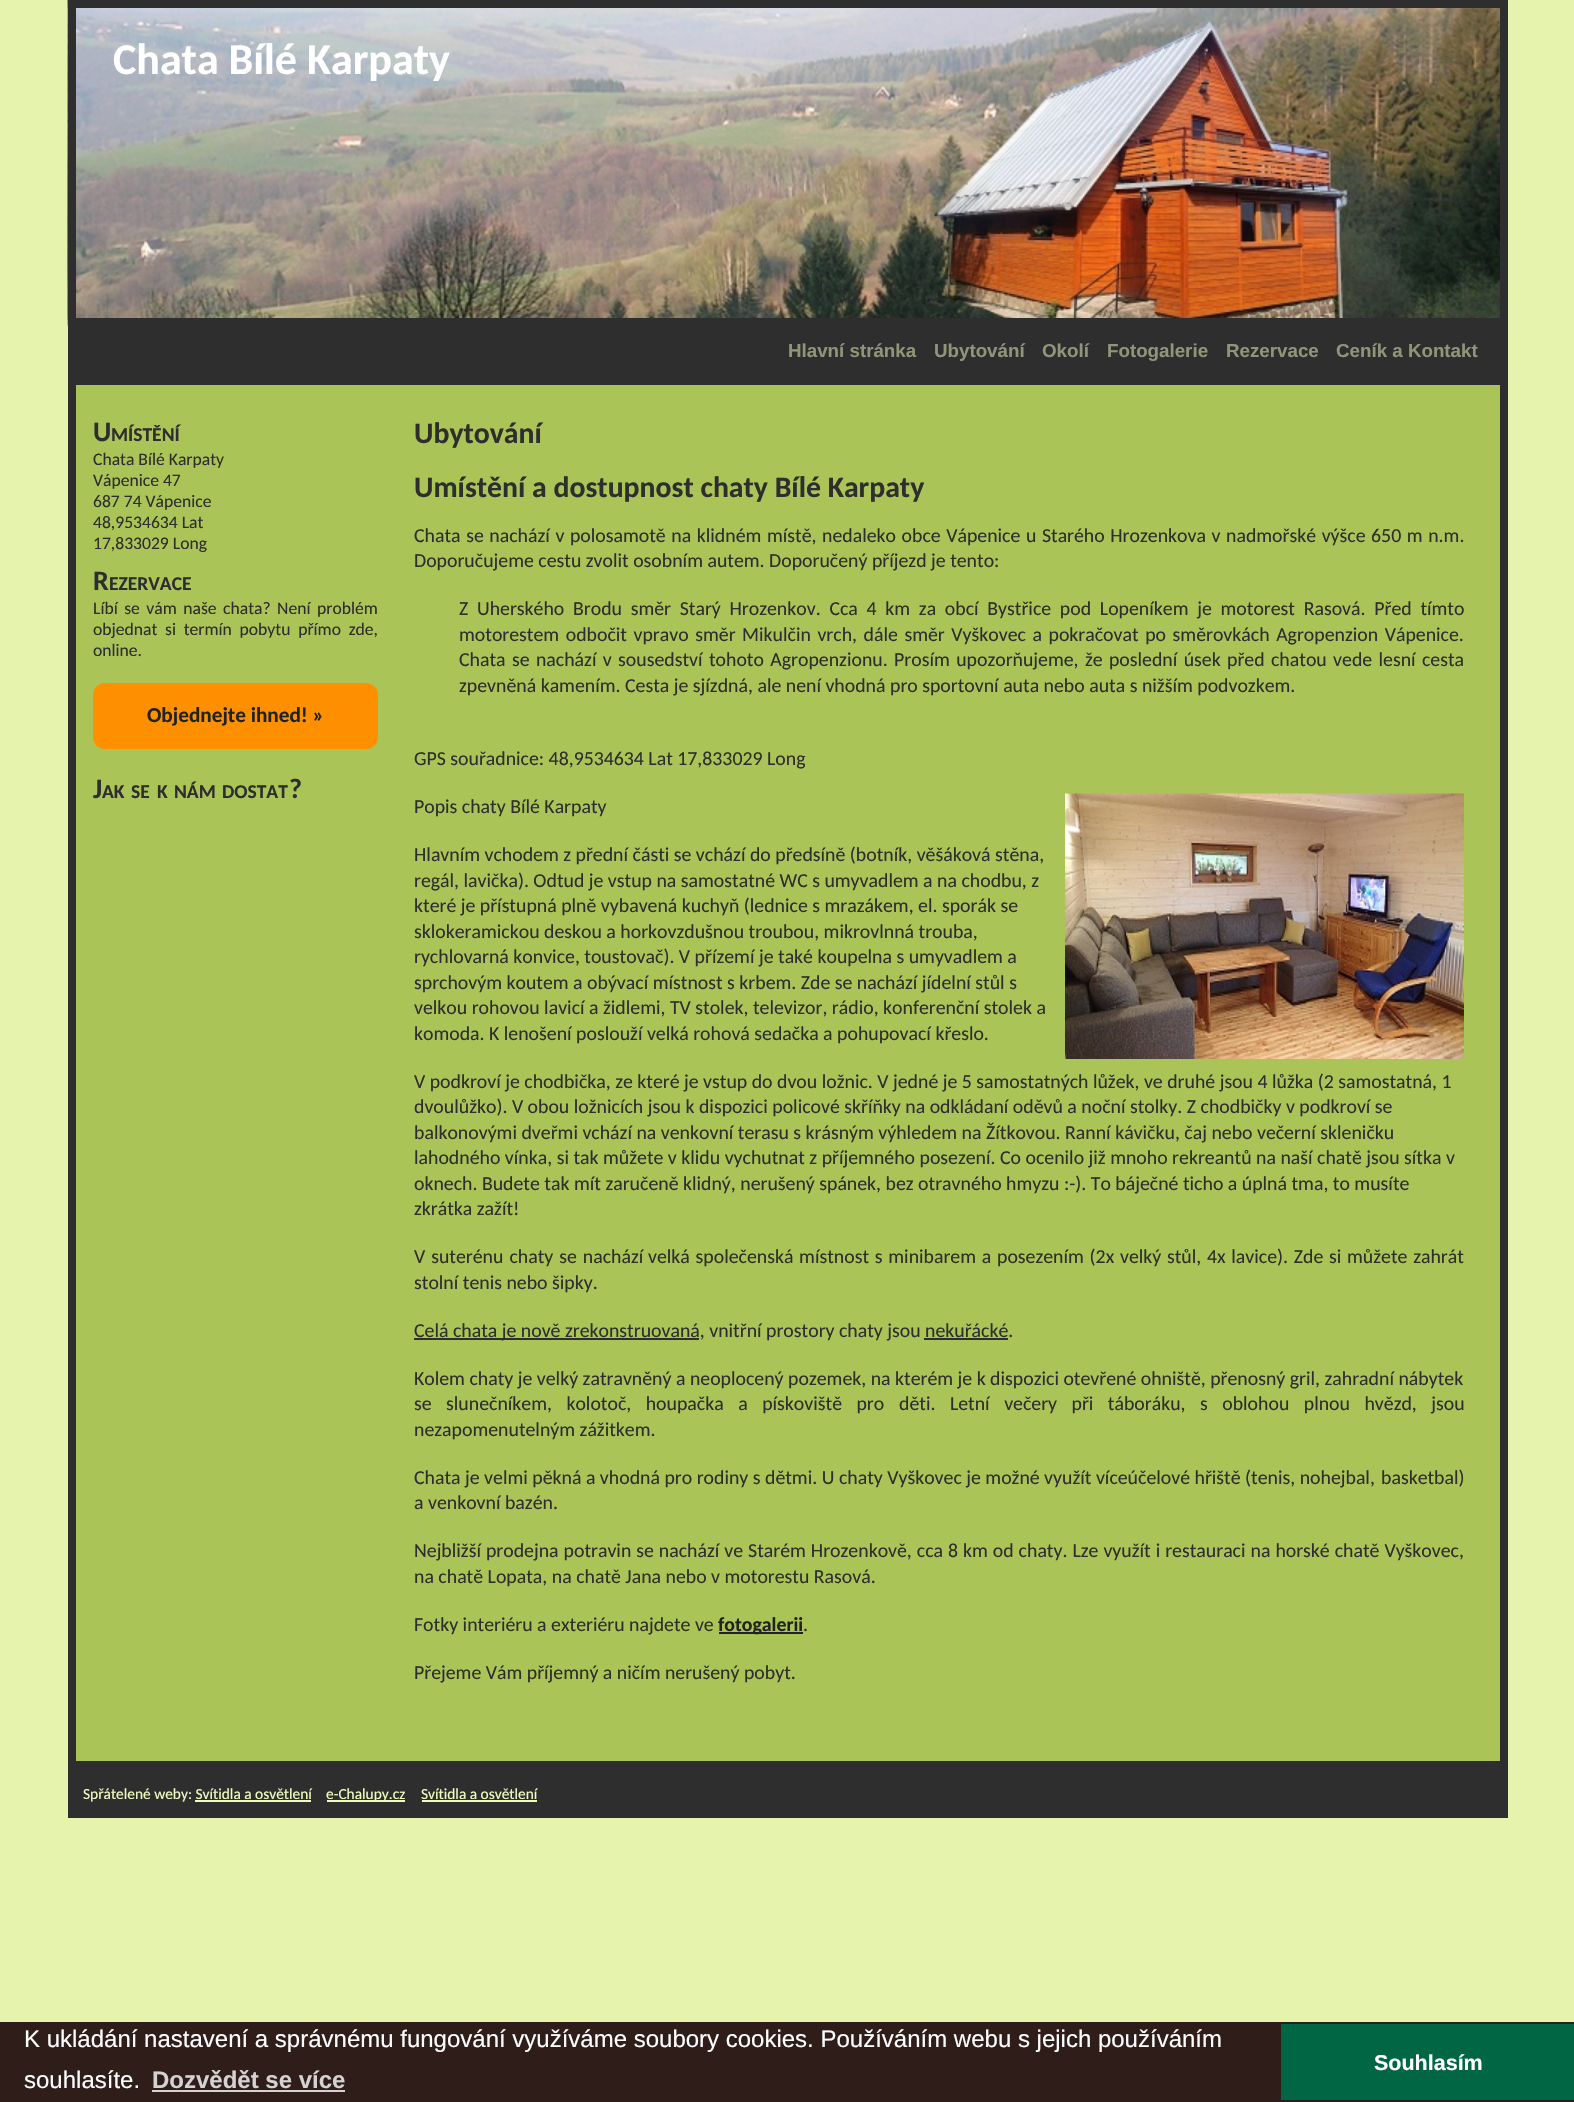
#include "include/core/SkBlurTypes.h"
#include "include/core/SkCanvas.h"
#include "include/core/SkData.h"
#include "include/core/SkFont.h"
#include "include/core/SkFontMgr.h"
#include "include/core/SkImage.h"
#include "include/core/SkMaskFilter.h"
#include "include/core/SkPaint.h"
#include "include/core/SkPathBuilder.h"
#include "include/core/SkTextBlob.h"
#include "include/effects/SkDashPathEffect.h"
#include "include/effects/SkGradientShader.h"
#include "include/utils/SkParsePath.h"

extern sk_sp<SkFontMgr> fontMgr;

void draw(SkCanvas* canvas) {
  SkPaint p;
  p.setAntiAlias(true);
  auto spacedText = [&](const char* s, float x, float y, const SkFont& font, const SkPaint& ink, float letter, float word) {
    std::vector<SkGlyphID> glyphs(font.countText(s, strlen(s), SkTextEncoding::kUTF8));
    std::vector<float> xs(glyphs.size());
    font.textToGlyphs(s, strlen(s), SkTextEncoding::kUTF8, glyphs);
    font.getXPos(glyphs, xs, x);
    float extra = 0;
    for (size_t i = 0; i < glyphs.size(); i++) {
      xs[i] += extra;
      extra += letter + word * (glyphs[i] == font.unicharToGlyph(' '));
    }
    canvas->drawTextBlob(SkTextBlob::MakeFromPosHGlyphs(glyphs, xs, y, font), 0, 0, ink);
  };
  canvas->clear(SkColorSetRGB(230, 243, 173));
  canvas->drawImageRect(SkImages::DeferredFromEncodedData(SkData::MakeFromFileName("images/1.png")), SkRect::MakeLTRB(67, 0, 1500, 326), SkSamplingOptions());
  p.setStyle(SkPaint::kStroke_Style);
  p.setStrokeWidth(8);
  p.setColor(SkColorSetRGB(46, 46, 46));
  canvas->drawRect(SkRect::MakeLTRB(72, 4, 1504, 322), p);
  p.setStyle(SkPaint::kFill_Style);
  canvas->drawRect(SkRect::MakeLTRB(68, 326, 1508, 377), p);
  p.setColor(SkColorSetRGB(170, 196, 87));
  canvas->drawRect(SkRect::MakeLTRB(72, 381, 1504, 1765), p);
  p.setStyle(SkPaint::kStroke_Style);
  p.setColor(SkColorSetRGB(46, 46, 46));
  canvas->drawRect(SkRect::MakeLTRB(72, 381, 1504, 1765), p);
  p.setStyle(SkPaint::kFill_Style);
  p.setColor(SkColorSetRGB(254, 144, 0));
  canvas->drawRoundRect(SkRect::MakeLTRB(93, 683, 378, 749), 12, 12, p);
  canvas->drawImageRect(SkImages::DeferredFromEncodedData(SkData::MakeFromFileName("images/2.png")), SkRect::MakeLTRB(1065, 793, 1464, 1059), SkSamplingOptions());
  p.setColor(SkColorSetRGB(46, 46, 46));
  canvas->drawRect(SkRect::MakeLTRB(414, 1338, 699, 1340), p);
  canvas->drawRect(SkRect::MakeLTRB(924, 1338, 1008, 1340), p);
  p.setColor(SkColorSetRGB(34, 34, 34));
  canvas->drawRect(SkRect::MakeLTRB(719, 1632, 803, 1634), p);
  p.setColor(SkColorSetRGB(46, 46, 46));
  canvas->drawRect(SkRect::MakeLTRB(68, 1769, 1508, 1818), p);
  p.setColor(SkColorSetRGB(240, 253, 193));
  canvas->drawRect(SkRect::MakeLTRB(327, 1800, 405, 1802), p);
  canvas->drawRect(SkRect::MakeLTRB(422, 1800, 537, 1802), p);
  canvas->drawRect(SkRect::MakeLTRB(195, 1800, 311, 1802), p);
  p.setColor(SkColorSetRGB(47, 29, 26));
  canvas->drawRect(SkRect::MakeLTRB(0, 2022, 1574, 2102), p);
  p.setColor(SkColorSetRGB(213, 210, 209));
  canvas->drawRect(SkRect::MakeLTRB(152, 2090, 345, 2092), p);
  p.setColor(SkColorSetRGB(0, 102, 67));
  canvas->drawRect(SkRect::MakeLTRB(1281, 2024, 1574, 2100), p);
  SkFont font1(fontMgr->matchFamilyStyle("Carlito", SkFontStyle::Bold()), 44);
  font1.setSubpixel(true);
  p.setColor(SK_ColorWHITE);
  canvas->drawString("Chata Bílé Karpaty", 113, 74, font1, p);
  SkFont font2(fontMgr->matchFamilyStyle("Liberation Sans", SkFontStyle::Bold()), 18.75f);
  font2.setSubpixel(true);
  p.setColor(SkColorSetRGB(143, 150, 120));
  canvas->drawString("Hlavní stránka", 788, 357, font2, p);
  canvas->drawString("Ubytování", 934, 357, font2, p);
  canvas->drawString("Okolí", 1042, 357, font2, p);
  canvas->drawString("Fotogalerie", 1107, 357, font2, p);
  canvas->drawString("Rezervace", 1226, 357, font2, p);
  canvas->drawString("Ceník a Kontakt", 1336, 357, font2, p);
  SkFont font3(fontMgr->matchFamilyStyle("Carlito", SkFontStyle::Bold()), 28);
  font3.setSubpixel(true);
  p.setColor(SkColorSetRGB(46, 46, 46));
  canvas->drawString("U", 93, 441, font3, p);
  SkFont font4(fontMgr->matchFamilyStyle("Carlito", SkFontStyle::Bold()), 19.5f);
  font4.setSubpixel(true);
  canvas->drawString("MÍSTĚNÍ", 111, 441, font4, p);
  SkFont font5(fontMgr->matchFamilyStyle("Carlito", SkFontStyle::Normal()), 17.6f);
  font5.setSubpixel(true);
  canvas->drawString("Chata Bílé Karpaty", 93, 465, font5, p);
  canvas->drawString("Vápenice 47", 93, 486, font5, p);
  canvas->drawString("687 74 Vápenice", 93, 507, font5, p);
  canvas->drawString("48,9534634 Lat", 93, 528, font5, p);
  canvas->drawString("17,833029 Long", 93, 549, font5, p);
  canvas->drawString("R", 93, 590, font3, p);
  canvas->drawString("EZERVACE", 109, 590, font4, p);
  spacedText("Líbí se vám naše chata? Není problém", 93, 614, font5, p, 0, 2.5f);
  spacedText("objednat si termín pobytu přímo zde,", 93, 635, font5, p, 0, 3.75f);
  canvas->drawString("online.", 93, 656, font5, p);
  SkFont font6(fontMgr->matchFamilyStyle("Carlito", SkFontStyle::Bold()), 21.25f);
  font6.setSubpixel(true);
  p.setColor(SkColorSetRGB(34, 34, 34));
  canvas->drawString("Objednejte ihned! »", 147, 722, font6, p);
  p.setColor(SkColorSetRGB(46, 46, 46));
  canvas->drawString("J", 93, 798, font3, p);
  canvas->drawString("AK", 102, 798, font4, p);
  canvas->drawString("SE", 131, 798, font4, p);
  canvas->drawString("K", 157, 798, font4, p);
  canvas->drawString("NÁM", 174, 798, font4, p);
  canvas->drawString("DOSTAT", 222, 798, font4, p);
  canvas->drawString("?", 289, 798, font3, p);
  SkFont font7(fontMgr->matchFamilyStyle("Carlito", SkFontStyle::Bold()), 29.75f);
  font7.setSubpixel(true);
  canvas->drawString("Ubytování", 414, 443, font7, p);
  canvas->drawString("Umístění a dostupnost chaty Bílé Karpaty", 414, 497, font7, p);
  SkFont font8(fontMgr->matchFamilyStyle("Carlito", SkFontStyle::Normal()), 19.8f);
  font8.setSubpixel(true);
  spacedText("Chata se nachází v polosamotě na klidném místě, nedaleko obce Vápenice u Starého Hrozenkova v nadmořské výšce 650 m n.m.", 414, 542, font8, p, 0, 1.1f);
  canvas->drawString("Doporučujeme cestu zvolit osobním autem. Doporučený příjezd je tento:", 414, 567, font8, p);
  spacedText("Z Uherského Brodu směr Starý Hrozenkov. Cca 4 km za obcí Bystřice pod Lopeníkem je motorest Rasová. Před tímto", 459, 615, font8, p, 0, 4.25f);
  spacedText("motorestem odbočit vpravo směr Mikulčin vrch, dále směr Vyškovec a pokračovat po směrovkách Agropenzion Vápenice.", 459, 641, font8, p, 0, 2.1f);
  spacedText("Chata se nachází v sousedství tohoto Agropenzionu. Prosím upozorňujeme, že poslední úsek před chatou vede lesní cesta", 459, 666, font8, p, 0, 1.9f);
  canvas->drawString("zpevněná kamením. Cesta je sjízdná, ale není vhodná pro sportovní auta nebo auta s nižším podvozkem.", 459, 692, font8, p);
  canvas->drawString("GPS souřadnice: 48,9534634 Lat 17,833029 Long", 414, 765, font8, p);
  canvas->drawString("Popis chaty Bílé Karpaty", 414, 813, font8, p);
  canvas->drawString("Hlavním vchodem z přední části se vchází do předsíně (botník, věšáková stěna,", 414, 861, font8, p);
  canvas->drawString("regál, lavička). Odtud je vstup na samostatné WC s umyvadlem a na chodbu, z", 414, 887, font8, p);
  canvas->drawString("které je přístupná plně vybavená kuchyň (lednice s mrazákem, el. sporák se", 414, 912, font8, p);
  canvas->drawString("sklokeramickou deskou a horkovzdušnou troubou, mikrovlnná trouba,", 414, 938, font8, p);
  canvas->drawString("rychlovarná konvice, toustovač). V přízemí je také koupelna s umyvadlem a", 414, 963, font8, p);
  canvas->drawString("sprchovým koutem a obývací místnost s krbem. Zde se nachází jídelní stůl s", 414, 989, font8, p);
  canvas->drawString("velkou rohovou lavicí a židlemi, TV stolek, televizor, rádio, konferenční stolek a", 414, 1014, font8, p);
  canvas->drawString("komoda. K lenošení poslouží velká rohová sedačka a pohupovací křeslo.", 414, 1040, font8, p);
  canvas->drawString("V podkroví je chodbička, ze které je vstup do dvou ložnic. V jedné je 5 samostatných lůžek, ve druhé jsou 4 lůžka (2 samostatná, 1", 414, 1088, font8, p);
  canvas->drawString("dvoulůžko). V obou ložnicích jsou k dispozici policové skříňky na odkládaní oděvů a noční stolky. Z chodbičky v podkroví se", 414, 1113, font8, p);
  canvas->drawString("balkonovými dveřmi vchází na venkovní terasu s krásným výhledem na Žítkovou. Ranní kávičku, čaj nebo večerní skleničku", 414, 1139, font8, p);
  canvas->drawString("lahodného vínka, si tak můžete v klidu vychutnat z příjemného posezení. Co ocenilo již mnoho rekreantů na naší chatě jsou sítka v", 414, 1164, font8, p);
  canvas->drawString("oknech. Budete tak mít zaručeně klidný, nerušený spánek, bez otravného hmyzu :-). To báječné ticho a úplná tma, to musíte", 414, 1190, font8, p);
  canvas->drawString("zkrátka zažít!", 414, 1215, font8, p);
  spacedText("V suterénu chaty se nachází", 414, 1263, font8, p, 0, 1.5f);
  spacedText("velká společenská místnost s minibarem a", 648, 1263, font8, p, 0, 1.25f);
  spacedText("posezením (2x velký stůl, 4x lavice). Zde si můžete zahrát", 997, 1263, font8, p, 0, 1.25f);
  canvas->drawString("stolní tenis nebo šipky.", 414, 1289, font8, p);
  canvas->drawString("Celá chata je nově zrekonstruovaná, vnitřní prostory chaty jsou", 414, 1337, font8, p);
  canvas->drawString("nekuřácké.", 925, 1337, font8, p);
  canvas->drawString("Kolem chaty je velký zatravněný a neoplocený pozemek, na kterém je k dispozici otevřené ohniště, přenosný gril, zahradní nábytek", 414, 1385, font8, p);
  spacedText("se slunečníkem, kolotoč, houpačka a pískoviště pro", 414, 1410, font8, p, 0, 10);
  spacedText("děti. Letní večery při táboráku, s oblohou plnou hvězd, jsou", 899, 1410, font8, p, 0, 10);
  canvas->drawString("nezapomenutelným zážitkem.", 414, 1436, font8, p);
  canvas->drawString("Chata je velmi pěkná a vhodná pro rodiny s dětmi. U chaty Vyškovec je možné využít víceúčelové hřiště (tenis, nohejbal,", 414, 1484, font8, p);
  canvas->drawString("basketbal)", 1381, 1484, font8, p);
  canvas->drawString("a venkovní bazén.", 414, 1509, font8, p);
  spacedText("Nejbližší prodejna potravin se nachází ve Starém Hrozenkově, cca 8 km od chaty. Lze využít i restauraci na horské chatě Vyškovec,", 414, 1557, font8, p, 0, 0.5f);
  canvas->drawString("na chatě Lopata, na chatě Jana nebo v motorestu Rasová.", 414, 1583, font8, p);
  canvas->drawString("Fotky interiéru a exteriéru najdete ve", 414, 1631, font8, p);
  SkFont font9(fontMgr->matchFamilyStyle("Carlito", SkFontStyle::Bold()), 19.8f);
  font9.setSubpixel(true);
  p.setColor(SkColorSetRGB(34, 34, 34));
  canvas->drawString("fotogalerii", 718, 1631, font9, p);
  p.setColor(SkColorSetRGB(46, 46, 46));
  canvas->drawString(".", 803, 1631, font8, p);
  canvas->drawString("Přejeme Vám příjemný a ničím nerušený pobyt.", 414, 1679, font8, p);
  SkFont font10(fontMgr->matchFamilyStyle("Carlito", SkFontStyle::Normal()), 15.4f);
  font10.setSubpixel(true);
  p.setColor(SkColorSetRGB(240, 253, 193));
  canvas->drawString("Spřátelené weby: Svítidla a osvětlení", 83, 1799, font10, p);
  canvas->drawString("e-Chalupy.cz", 326, 1799, font10, p);
  canvas->drawString("Svítidla a osvětlení", 421, 1799, font10, p);
  SkFont font11(fontMgr->matchFamilyStyle("Liberation Sans", SkFontStyle::Normal()), 24);
  font11.setSubpixel(true);
  p.setColor(SK_ColorWHITE);
  canvas->drawString("K ukládání nastavení a správnému fungování využíváme soubory cookies. Používáním webu s jejich používáním", 24, 2047, font11, p);
  canvas->drawString("souhlasíte.", 24, 2088, font11, p);
  SkFont font12(fontMgr->matchFamilyStyle("Liberation Sans", SkFontStyle::Bold()), 24);
  font12.setSubpixel(true);
  p.setColor(SkColorSetRGB(213, 210, 209));
  canvas->drawString("Dozvědět se více", 152, 2088, font12, p);
  SkFont font13(fontMgr->matchFamilyStyle("Liberation Sans", SkFontStyle::Bold()), 21.5f);
  font13.setSubpixel(true);
  p.setColor(SK_ColorWHITE);
  canvas->drawString("Souhlasím", 1374, 2070, font13, p);
}
